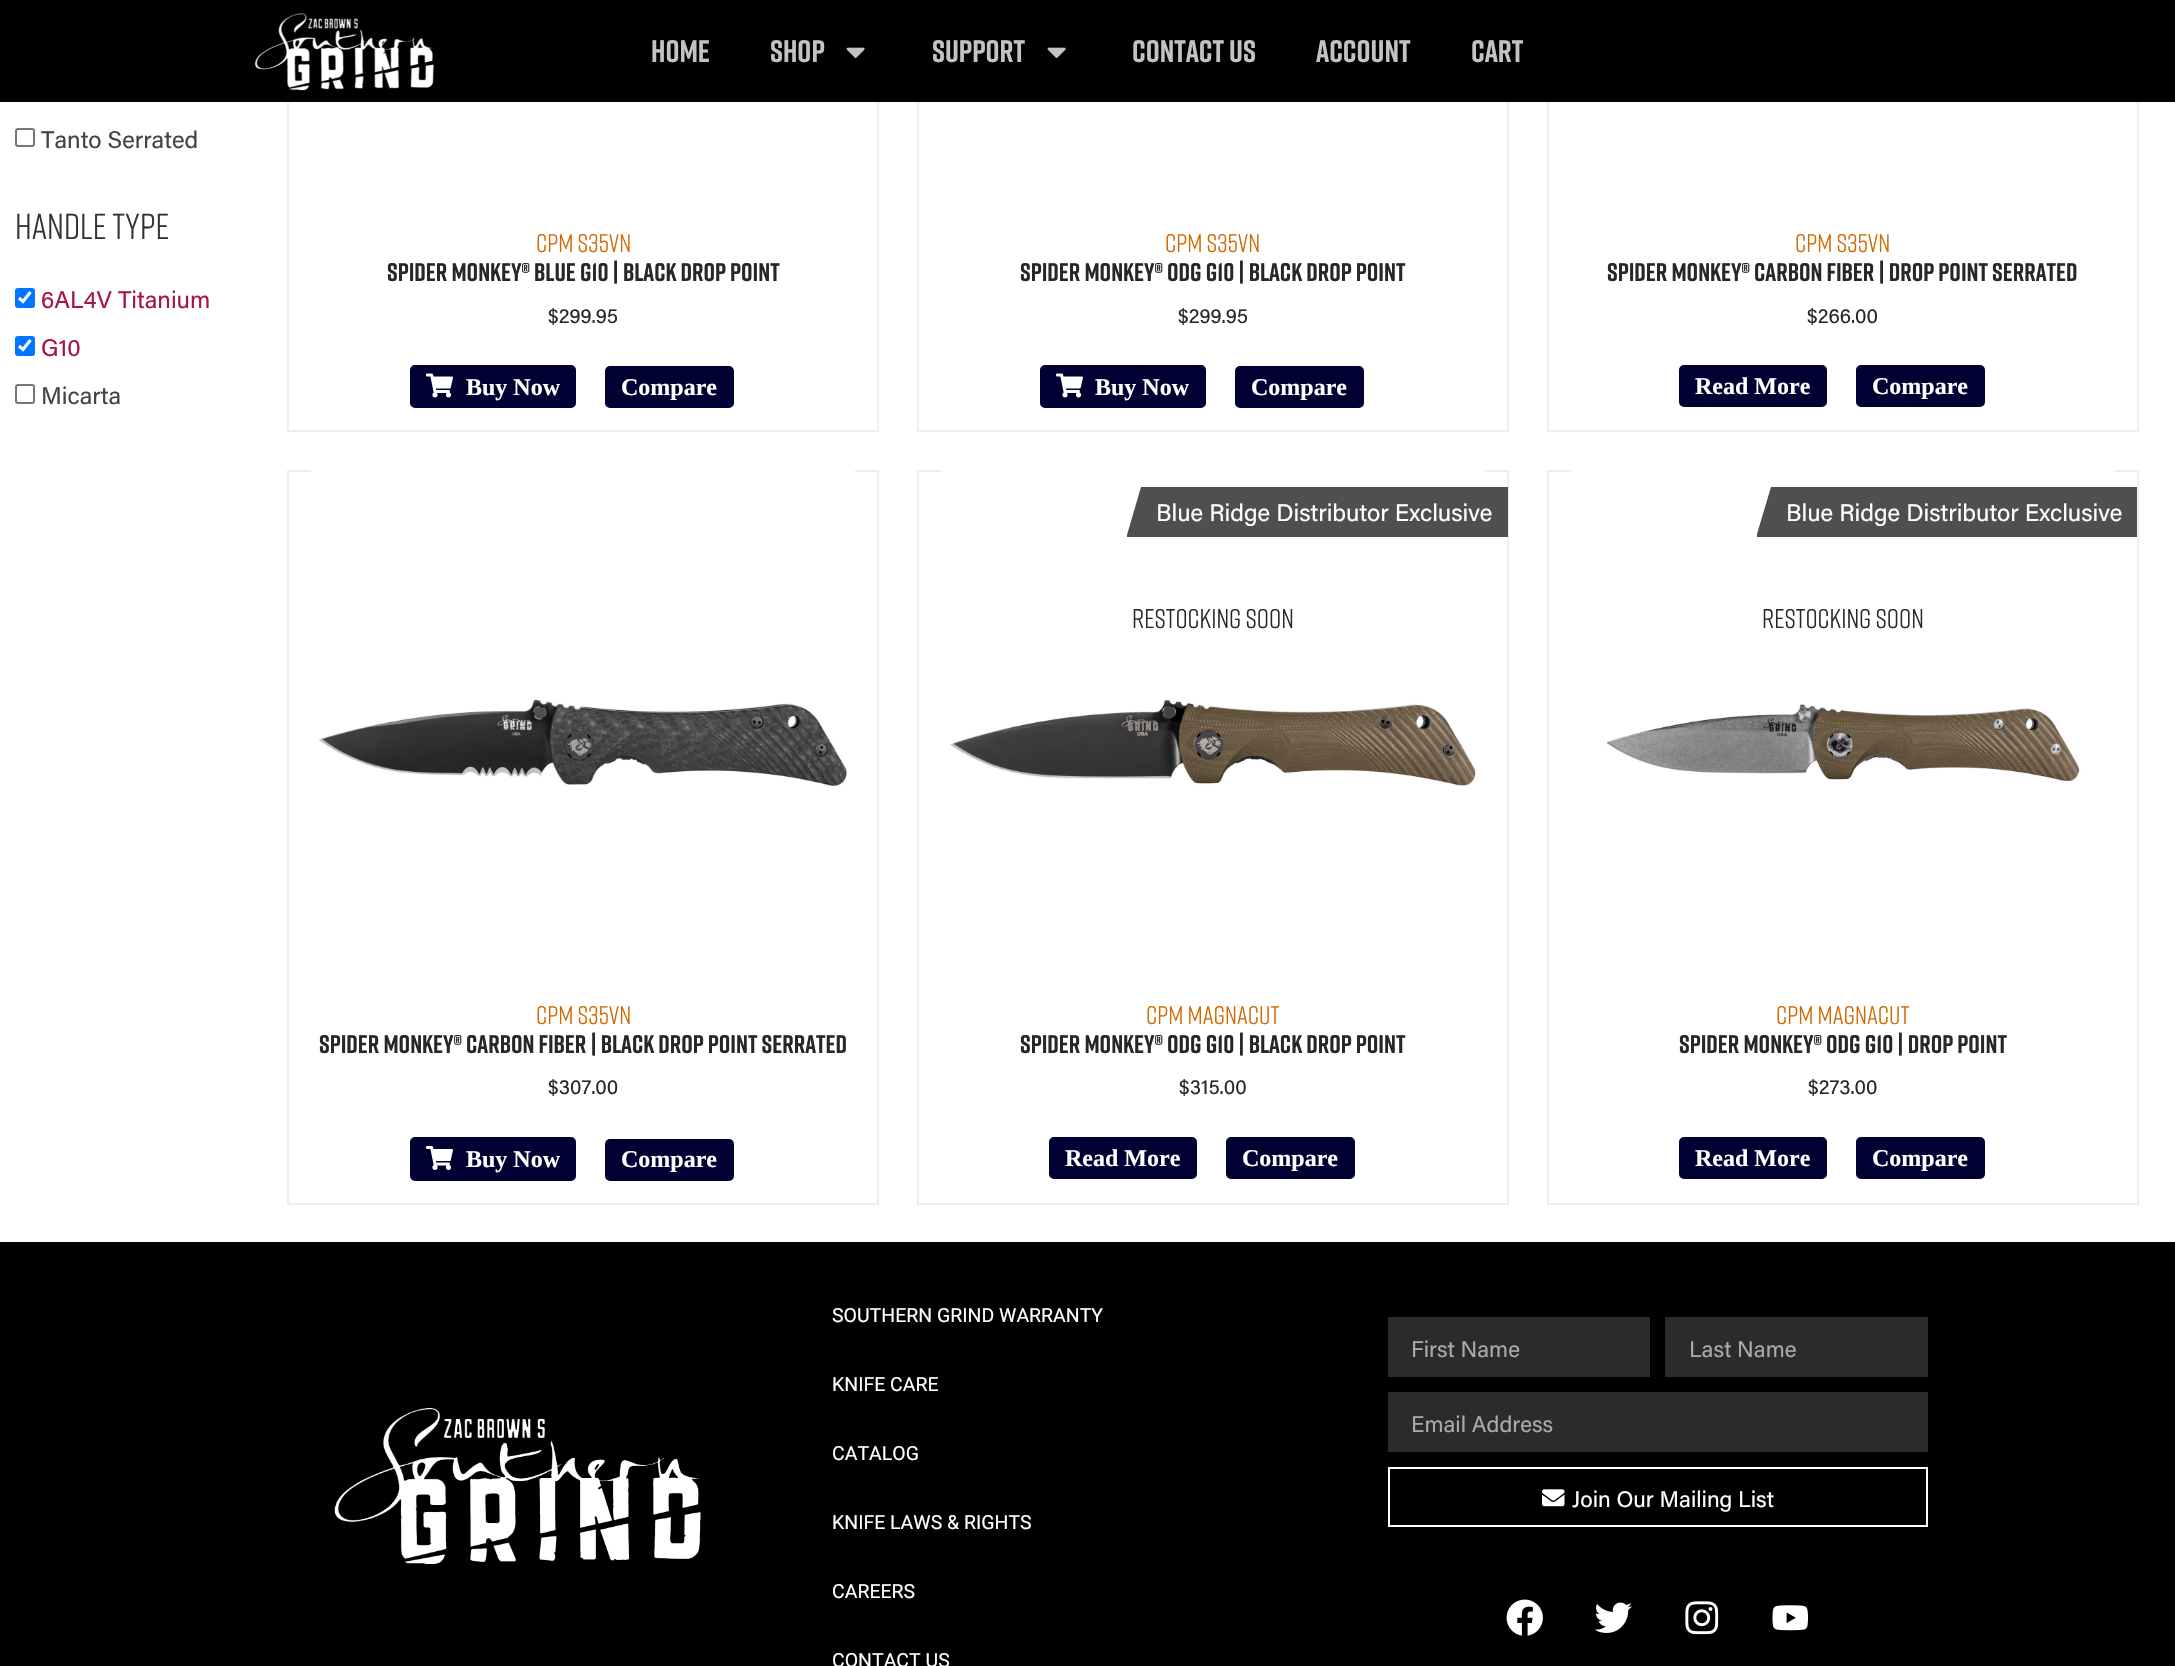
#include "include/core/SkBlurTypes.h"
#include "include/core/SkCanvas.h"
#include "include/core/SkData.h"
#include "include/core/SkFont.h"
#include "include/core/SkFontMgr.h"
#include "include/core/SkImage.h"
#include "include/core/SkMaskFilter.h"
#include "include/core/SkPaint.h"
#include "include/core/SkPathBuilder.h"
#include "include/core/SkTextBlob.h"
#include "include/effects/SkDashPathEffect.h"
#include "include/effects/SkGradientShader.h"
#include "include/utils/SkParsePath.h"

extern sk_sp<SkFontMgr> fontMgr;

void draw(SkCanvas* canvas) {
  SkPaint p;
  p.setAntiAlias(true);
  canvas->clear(SK_ColorWHITE);
  p.setStyle(SkPaint::kStroke_Style);
  p.setStrokeWidth(2);
  p.setColor(SkColorSetRGB(238, 238, 238));
  canvas->drawRect(SkRect::MakeLTRB(288, -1, 878, 431), p);
  canvas->drawRect(SkRect::MakeLTRB(918, -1, 1508, 431), p);
  canvas->drawRect(SkRect::MakeLTRB(1548, -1, 2138, 431), p);
  p.setStyle(SkPaint::kFill_Style);
  p.setColor(SK_ColorBLACK);
  canvas->drawRect(SkRect::MakeLTRB(0, 0, 2175, 102), p);
  canvas->drawImageRect(SkImages::DeferredFromEncodedData(SkData::MakeFromFileName("images/1.png")), SkRect::MakeLTRB(254, 13, 434, 91), SkSamplingOptions());
  canvas->drawImageRect(SkImages::DeferredFromEncodedData(SkData::MakeFromFileName("images/2.png")), SkRect::MakeLTRB(846, 47, 865, 58), SkSamplingOptions());
  canvas->drawImageRect(SkImages::DeferredFromEncodedData(SkData::MakeFromFileName("images/2.png")), SkRect::MakeLTRB(1047, 47, 1066, 58), SkSamplingOptions());
  p.setStyle(SkPaint::kStroke_Style);
  p.setColor(SkColorSetRGB(118, 118, 118));
  canvas->drawRoundRect(SkRect::MakeLTRB(16, 129, 34, 146), 2, 2, p);
  p.setStyle(SkPaint::kFill_Style);
  p.setColor(SkColorSetRGB(0, 117, 255));
  canvas->drawRoundRect(SkRect::MakeLTRB(15, 288, 35, 308), 3, 3, p);
  p.setStyle(SkPaint::kStroke_Style);
  p.setStrokeWidth(3.1f);
  p.setColor(SK_ColorWHITE);
  canvas->drawPath(SkPathBuilder().moveTo(19, 298).lineTo(23, 301.5f).lineTo(30.5f, 292).detach(), p);
  p.setStyle(SkPaint::kFill_Style);
  p.setColor(SkColorSetRGB(0, 117, 255));
  canvas->drawRoundRect(SkRect::MakeLTRB(15, 336, 35, 356), 3, 3, p);
  p.setStyle(SkPaint::kStroke_Style);
  p.setColor(SK_ColorWHITE);
  canvas->drawPath(SkPathBuilder().moveTo(19, 346).lineTo(23, 349.5f).lineTo(30.5f, 340).detach(), p);
  p.setStrokeWidth(2);
  p.setColor(SkColorSetRGB(118, 118, 118));
  canvas->drawRoundRect(SkRect::MakeLTRB(16, 385, 34, 403), 2, 2, p);
  p.setStyle(SkPaint::kFill_Style);
  p.setColor(SkColorSetRGB(0, 0, 51));
  canvas->drawRoundRect(SkRect::MakeLTRB(411, 366, 575, 407), 4, 4, p);
  p.setStyle(SkPaint::kStroke_Style);
  canvas->drawRoundRect(SkRect::MakeLTRB(411, 366, 575, 407), 4, 4, p);
  canvas->drawImageRect(SkImages::DeferredFromEncodedData(SkData::MakeFromFileName("images/3.png")), SkRect::MakeLTRB(426, 373, 453, 398), SkSamplingOptions());
  p.setStyle(SkPaint::kFill_Style);
  canvas->drawRoundRect(SkRect::MakeLTRB(606, 367, 733, 407), 4, 4, p);
  p.setStyle(SkPaint::kStroke_Style);
  canvas->drawRoundRect(SkRect::MakeLTRB(606, 367, 733, 407), 4, 4, p);
  p.setStyle(SkPaint::kFill_Style);
  canvas->drawRoundRect(SkRect::MakeLTRB(1041, 366, 1205, 407), 4, 4, p);
  p.setStyle(SkPaint::kStroke_Style);
  canvas->drawRoundRect(SkRect::MakeLTRB(1041, 366, 1205, 407), 4, 4, p);
  canvas->drawImageRect(SkImages::DeferredFromEncodedData(SkData::MakeFromFileName("images/3.png")), SkRect::MakeLTRB(1056, 373, 1083, 398), SkSamplingOptions());
  p.setStyle(SkPaint::kFill_Style);
  canvas->drawRoundRect(SkRect::MakeLTRB(1236, 367, 1363, 407), 4, 4, p);
  p.setStyle(SkPaint::kStroke_Style);
  canvas->drawRoundRect(SkRect::MakeLTRB(1236, 367, 1363, 407), 4, 4, p);
  p.setStyle(SkPaint::kFill_Style);
  canvas->drawRoundRect(SkRect::MakeLTRB(1680, 366, 1826, 406), 4, 4, p);
  p.setStyle(SkPaint::kStroke_Style);
  canvas->drawRoundRect(SkRect::MakeLTRB(1680, 366, 1826, 406), 4, 4, p);
  p.setStyle(SkPaint::kFill_Style);
  canvas->drawRoundRect(SkRect::MakeLTRB(1857, 366, 1984, 406), 4, 4, p);
  p.setStyle(SkPaint::kStroke_Style);
  canvas->drawRoundRect(SkRect::MakeLTRB(1857, 366, 1984, 406), 4, 4, p);
  p.setColor(SkColorSetRGB(238, 238, 238));
  canvas->drawRect(SkRect::MakeLTRB(288, 471, 878, 1204), p);
  canvas->drawImageRect(SkImages::DeferredFromEncodedData(SkData::MakeFromFileName("images/4.png")), SkRect::MakeLTRB(311, 470, 855, 786), SkSamplingOptions());
  p.setStyle(SkPaint::kFill_Style);
  p.setColor(SkColorSetRGB(0, 0, 51));
  canvas->drawRoundRect(SkRect::MakeLTRB(411, 1138, 575, 1180), 4, 4, p);
  p.setStyle(SkPaint::kStroke_Style);
  canvas->drawRoundRect(SkRect::MakeLTRB(411, 1138, 575, 1180), 4, 4, p);
  canvas->drawImageRect(SkImages::DeferredFromEncodedData(SkData::MakeFromFileName("images/5.png")), SkRect::MakeLTRB(426, 1146, 453, 1170), SkSamplingOptions());
  p.setStyle(SkPaint::kFill_Style);
  canvas->drawRoundRect(SkRect::MakeLTRB(606, 1140, 733, 1180), 4, 4, p);
  p.setStyle(SkPaint::kStroke_Style);
  canvas->drawRoundRect(SkRect::MakeLTRB(606, 1140, 733, 1180), 4, 4, p);
  p.setColor(SkColorSetRGB(238, 238, 238));
  canvas->drawRect(SkRect::MakeLTRB(918, 471, 1508, 1204), p);
  canvas->drawImageRect(SkImages::DeferredFromEncodedData(SkData::MakeFromFileName("images/6.png")), SkRect::MakeLTRB(941, 470, 1485, 786), SkSamplingOptions());
  p.setStyle(SkPaint::kFill_Style);
  p.setColor(SkColorSetRGB(79, 79, 79));
  canvas->drawPath(SkPathBuilder().moveTo(1141, 487).lineTo(1508, 487).lineTo(1508, 537).lineTo(1127, 537).lineTo(1127, 535).close().detach(), p);
  p.setColor(SkColorSetRGB(0, 0, 51));
  canvas->drawRoundRect(SkRect::MakeLTRB(1050, 1138, 1196, 1178), 4, 4, p);
  p.setStyle(SkPaint::kStroke_Style);
  canvas->drawRoundRect(SkRect::MakeLTRB(1050, 1138, 1196, 1178), 4, 4, p);
  p.setStyle(SkPaint::kFill_Style);
  canvas->drawRoundRect(SkRect::MakeLTRB(1227, 1138, 1354, 1178), 4, 4, p);
  p.setStyle(SkPaint::kStroke_Style);
  canvas->drawRoundRect(SkRect::MakeLTRB(1227, 1138, 1354, 1178), 4, 4, p);
  p.setColor(SkColorSetRGB(238, 238, 238));
  canvas->drawRect(SkRect::MakeLTRB(1548, 471, 2138, 1204), p);
  canvas->drawImageRect(SkImages::DeferredFromEncodedData(SkData::MakeFromFileName("images/7.png")), SkRect::MakeLTRB(1571, 470, 2115, 782), SkSamplingOptions());
  p.setStyle(SkPaint::kFill_Style);
  p.setColor(SkColorSetRGB(79, 79, 79));
  canvas->drawPath(SkPathBuilder().moveTo(1771, 487).lineTo(2137, 487).lineTo(2137, 537).lineTo(1757, 537).lineTo(1757, 534).close().detach(), p);
  p.setColor(SkColorSetRGB(0, 0, 51));
  canvas->drawRoundRect(SkRect::MakeLTRB(1680, 1138, 1826, 1178), 4, 4, p);
  p.setStyle(SkPaint::kStroke_Style);
  canvas->drawRoundRect(SkRect::MakeLTRB(1680, 1138, 1826, 1178), 4, 4, p);
  p.setStyle(SkPaint::kFill_Style);
  canvas->drawRoundRect(SkRect::MakeLTRB(1857, 1138, 1984, 1178), 4, 4, p);
  p.setStyle(SkPaint::kStroke_Style);
  canvas->drawRoundRect(SkRect::MakeLTRB(1857, 1138, 1984, 1178), 4, 4, p);
  p.setStyle(SkPaint::kFill_Style);
  p.setColor(SK_ColorBLACK);
  canvas->drawRect(SkRect::MakeLTRB(0, 1242, 2175, 1666), p);
  canvas->drawImageRect(SkImages::DeferredFromEncodedData(SkData::MakeFromFileName("images/8.png")), SkRect::MakeLTRB(334, 1408, 701, 1564), SkSamplingOptions());
  p.setColor(SkColorSetRGB(43, 43, 43));
  canvas->drawRect(SkRect::MakeLTRB(1388, 1317, 1650, 1377), p);
  canvas->drawRect(SkRect::MakeLTRB(1665, 1317, 1928, 1377), p);
  canvas->drawRect(SkRect::MakeLTRB(1388, 1392, 1928, 1452), p);
  p.setStyle(SkPaint::kStroke_Style);
  p.setColor(SK_ColorWHITE);
  canvas->drawRect(SkRect::MakeLTRB(1389, 1468, 1927, 1526), p);
  canvas->drawImageRect(SkImages::DeferredFromEncodedData(SkData::MakeFromFileName("images/9.png")), SkRect::MakeLTRB(1542, 1489, 1565, 1507), SkSamplingOptions());
  canvas->drawImageRect(SkImages::DeferredFromEncodedData(SkData::MakeFromFileName("images/10.png")), SkRect::MakeLTRB(1506, 1599, 1543, 1636), SkSamplingOptions());
  canvas->drawImageRect(SkImages::DeferredFromEncodedData(SkData::MakeFromFileName("images/11.png")), SkRect::MakeLTRB(1595, 1602, 1632, 1633), SkSamplingOptions());
  canvas->drawImageRect(SkImages::DeferredFromEncodedData(SkData::MakeFromFileName("images/12.png")), SkRect::MakeLTRB(1685, 1601, 1719, 1635), SkSamplingOptions());
  canvas->drawImageRect(SkImages::DeferredFromEncodedData(SkData::MakeFromFileName("images/13.png")), SkRect::MakeLTRB(1772, 1605, 1808, 1631), SkSamplingOptions());
  SkFont font1(fontMgr->matchFamilyStyle("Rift", SkFontStyle::Bold()), 31);
  font1.setSubpixel(true);
  p.setStyle(SkPaint::kFill_Style);
  p.setColor(SkColorSetRGB(195, 195, 195));
  canvas->drawString("HOME", 651, 62, font1, p);
  canvas->drawString("SHOP", 770, 62, font1, p);
  canvas->drawString("SUPPORT", 932, 62, font1, p);
  canvas->drawString("CONTACT US", 1132, 62, font1, p);
  canvas->drawString("ACCOUNT", 1316, 62, font1, p);
  canvas->drawString("CART", 1471, 62, font1, p);
  SkFont font2(fontMgr->matchFamilyStyle("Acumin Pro", SkFontStyle::Normal()), 24);
  font2.setSubpixel(true);
  p.setColor(SkColorSetRGB(67, 67, 67));
  canvas->drawString("Tanto Serrated", 41, 148, font2, p);
  SkFont font3(fontMgr->matchFamilyStyle("Rift", SkFontStyle::Normal()), 36);
  font3.setSubpixel(true);
  p.setColor(SkColorSetRGB(51, 51, 51));
  canvas->drawString("Handle Type", 15, 239, font3, p);
  p.setColor(SkColorSetRGB(167, 20, 76));
  canvas->drawString("6AL4V Titanium", 41, 308, font2, p);
  canvas->drawString("G10", 41, 356, font2, p);
  p.setColor(SkColorSetRGB(67, 67, 67));
  canvas->drawString("Micarta", 41, 404, font2, p);
  SkFont font4(fontMgr->matchFamilyStyle("Rift", SkFontStyle::Normal()), 25.5f);
  font4.setSubpixel(true);
  p.setColor(SkColorSetRGB(207, 106, 0));
  canvas->drawString("CPM S35VN", 536, 252, font4, p);
  SkFont font5(fontMgr->matchFamilyStyle("Rift", SkFontStyle::Bold()), 25.5f);
  font5.setSubpixel(true);
  p.setColor(SkColorSetRGB(39, 39, 39));
  canvas->drawString("Spider Monkey® Blue G10 | Black Drop Point", 387, 281, font5, p);
  SkFont font6(fontMgr->matchFamilyStyle("Acumin Pro", SkFontStyle::Normal()), 20.5f);
  font6.setSubpixel(true);
  canvas->drawString("$299.95", 548, 323, font6, p);
  SkFont font7(fontMgr->matchFamilyStyle("Liberation Serif", SkFontStyle::Bold()), 24);
  font7.setSubpixel(true);
  p.setColor(SK_ColorWHITE);
  canvas->drawString("Buy Now", 466, 395, font7, p);
  canvas->drawString("Compare", 621, 395, font7, p);
  p.setColor(SkColorSetRGB(207, 106, 0));
  canvas->drawString("CPM S35VN", 1165, 252, font4, p);
  p.setColor(SkColorSetRGB(39, 39, 39));
  canvas->drawString("Spider Monkey® ODG G10 | Black Drop Point", 1020, 281, font5, p);
  canvas->drawString("$299.95", 1178, 323, font6, p);
  p.setColor(SK_ColorWHITE);
  canvas->drawString("Buy Now", 1095, 395, font7, p);
  canvas->drawString("Compare", 1251, 395, font7, p);
  p.setColor(SkColorSetRGB(207, 106, 0));
  canvas->drawString("CPM S35VN", 1795, 252, font4, p);
  p.setColor(SkColorSetRGB(39, 39, 39));
  canvas->drawString("Spider Monkey® Carbon Fiber | Drop Point Serrated", 1607, 281, font5, p);
  canvas->drawString("$266.00", 1807, 323, font6, p);
  p.setColor(SK_ColorWHITE);
  canvas->drawString("Read More", 1695, 394, font7, p);
  canvas->drawString("Compare", 1872, 394, font7, p);
  p.setColor(SkColorSetRGB(207, 106, 0));
  canvas->drawString("CPM S35VN", 536, 1024, font4, p);
  p.setColor(SkColorSetRGB(39, 39, 39));
  canvas->drawString("Spider Monkey® Carbon Fiber | Black Drop Point Serrated", 319, 1053, font5, p);
  canvas->drawString("$307.00", 548, 1094, font6, p);
  p.setColor(SK_ColorWHITE);
  canvas->drawString("Buy Now", 466, 1167, font7, p);
  canvas->drawString("Compare", 621, 1167, font7, p);
  canvas->drawString("Blue Ridge Distributor Exclusive", 1156, 521, font2, p);
  SkFont font8(fontMgr->matchFamilyStyle("Rift", SkFontStyle::Normal()), 27);
  font8.setSubpixel(true);
  p.setColor(SkColorSetRGB(39, 39, 39));
  canvas->drawString("Restocking Soon", 1132, 628, font8, p);
  p.setColor(SkColorSetRGB(207, 106, 0));
  canvas->drawString("CPM MagnaCut", 1146, 1024, font4, p);
  p.setColor(SkColorSetRGB(39, 39, 39));
  canvas->drawString("Spider Monkey® ODG G10 | Black Drop Point", 1020, 1053, font5, p);
  canvas->drawString("$315.00", 1179, 1094, font6, p);
  p.setColor(SK_ColorWHITE);
  canvas->drawString("Read More", 1065, 1166, font7, p);
  canvas->drawString("Compare", 1242, 1166, font7, p);
  canvas->drawString("Blue Ridge Distributor Exclusive", 1786, 521, font2, p);
  p.setColor(SkColorSetRGB(39, 39, 39));
  canvas->drawString("Restocking Soon", 1762, 628, font8, p);
  p.setColor(SkColorSetRGB(207, 106, 0));
  canvas->drawString("CPM MagnaCut", 1776, 1024, font4, p);
  p.setColor(SkColorSetRGB(39, 39, 39));
  canvas->drawString("Spider Monkey® ODG G10 | Drop Point", 1679, 1053, font5, p);
  canvas->drawString("$273.00", 1808, 1094, font6, p);
  p.setColor(SK_ColorWHITE);
  canvas->drawString("Read More", 1695, 1166, font7, p);
  canvas->drawString("Compare", 1872, 1166, font7, p);
  SkFont font9(fontMgr->matchFamilyStyle("Roboto", SkFontStyle::Normal()), 19.5f);
  font9.setSubpixel(true);
  canvas->drawString("SOUTHERN GRIND WARRANTY", 832, 1322, font9, p);
  canvas->drawString("KNIFE CARE", 832, 1391, font9, p);
  canvas->drawString("CATALOG", 832, 1460, font9, p);
  canvas->drawString("KNIFE LAWS & RIGHTS", 832, 1529, font9, p);
  canvas->drawString("CAREERS", 832, 1598, font9, p);
  canvas->drawString("CONTACT US", 832, 1667, font9, p);
  SkFont font10(fontMgr->matchFamilyStyle("Acumin Pro", SkFontStyle::Normal()), 22.5f);
  font10.setSubpixel(true);
  p.setColor(SkColorSetRGB(170, 170, 170));
  canvas->drawString("First Name", 1411, 1357, font10, p);
  canvas->drawString("Last Name", 1689, 1357, font10, p);
  canvas->drawString("Email Address", 1411, 1432, font10, p);
  p.setColor(SK_ColorWHITE);
  canvas->drawString("Join Our Mailing List", 1572, 1507, font10, p);
}
